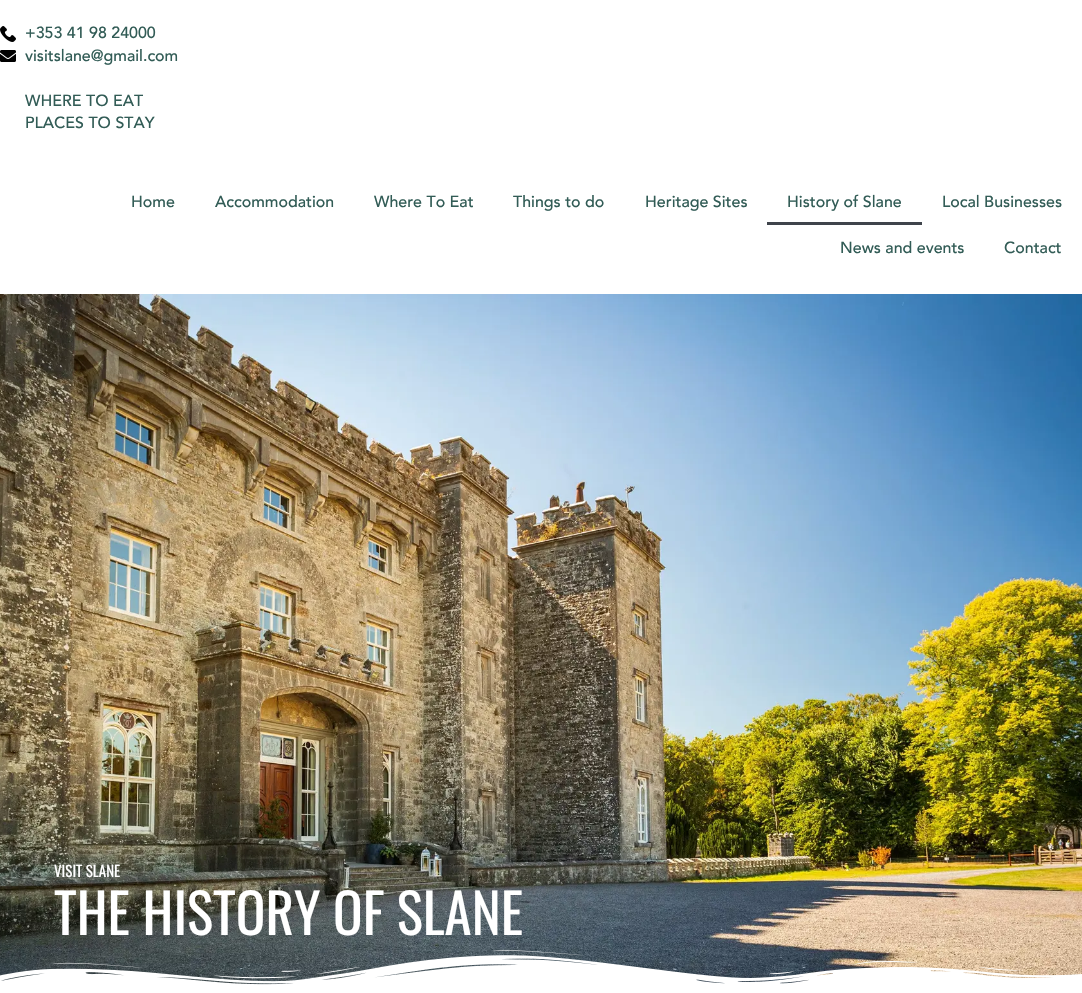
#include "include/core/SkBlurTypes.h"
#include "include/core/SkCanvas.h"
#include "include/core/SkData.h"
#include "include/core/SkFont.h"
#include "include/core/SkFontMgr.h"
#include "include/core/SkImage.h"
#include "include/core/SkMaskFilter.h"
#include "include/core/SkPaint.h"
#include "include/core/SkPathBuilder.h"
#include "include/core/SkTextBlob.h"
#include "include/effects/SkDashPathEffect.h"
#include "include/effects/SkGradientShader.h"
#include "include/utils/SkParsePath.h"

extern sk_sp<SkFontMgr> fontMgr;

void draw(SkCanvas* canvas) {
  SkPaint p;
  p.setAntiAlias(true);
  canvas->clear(SK_ColorWHITE);
  canvas->drawImageRect(SkImages::DeferredFromEncodedData(SkData::MakeFromFileName("images/1.png")), SkRect::MakeLTRB(0, 26, 16, 42), SkSamplingOptions());
  canvas->drawImageRect(SkImages::DeferredFromEncodedData(SkData::MakeFromFileName("images/2.png")), SkRect::MakeLTRB(0, 50, 16, 62), SkSamplingOptions());
  p.setColor(SkColorSetRGB(63, 68, 75));
  canvas->drawRect(SkRect::MakeLTRB(767, 222, 922, 225), p);
  canvas->drawImageRect(SkImages::DeferredFromEncodedData(SkData::MakeFromFileName("images/3.png")), SkRect::MakeLTRB(0, 294, 1082, 985), SkSamplingOptions());
  canvas->drawImageRect(SkImages::DeferredFromEncodedData(SkData::MakeFromFileName("images/4.png")), SkRect::MakeLTRB(0, 950, 1082, 989), SkSamplingOptions());
  SkFont font1(fontMgr->matchFamilyStyle("Avenir", SkFontStyle(500, SkFontStyle::kNormal_Width, SkFontStyle::kUpright_Slant)), 16);
  font1.setSubpixel(true);
  p.setColor(SkColorSetRGB(50, 92, 86));
  canvas->drawString("+353 41 98 24000", 25, 38, font1, p);
  canvas->drawString("visitslane@gmail.com", 25, 61, font1, p);
  canvas->drawString("WHERE TO EAT", 25, 106, font1, p);
  canvas->drawString("PLACES TO STAY", 25, 128, font1, p);
  canvas->drawString("Home", 131, 207, font1, p);
  canvas->drawString("Accommodation", 215, 207, font1, p);
  canvas->drawString("Where To Eat", 374, 207, font1, p);
  canvas->drawString("Things to do", 513, 207, font1, p);
  canvas->drawString("Heritage Sites", 645, 207, font1, p);
  canvas->drawString("History of Slane", 787, 207, font1, p);
  canvas->drawString("Local Businesses", 942, 207, font1, p);
  canvas->drawString("News and events", 840, 253, font1, p);
  canvas->drawString("Contact", 1004, 253, font1, p);
  SkFont font2(fontMgr->matchFamilyStyle("Oswald", SkFontStyle::Normal()), 15);
  font2.setSubpixel(true);
  p.setColor(SK_ColorWHITE);
  canvas->drawString("VISIT SLANE", 54, 877, font2, p);
  SkFont font3(fontMgr->matchFamilyStyle("Oswald", SkFontStyle::Normal()), 55);
  font3.setSubpixel(true);
  canvas->drawString("THE HISTORY OF SLANE", 54, 935, font3, p);
}
